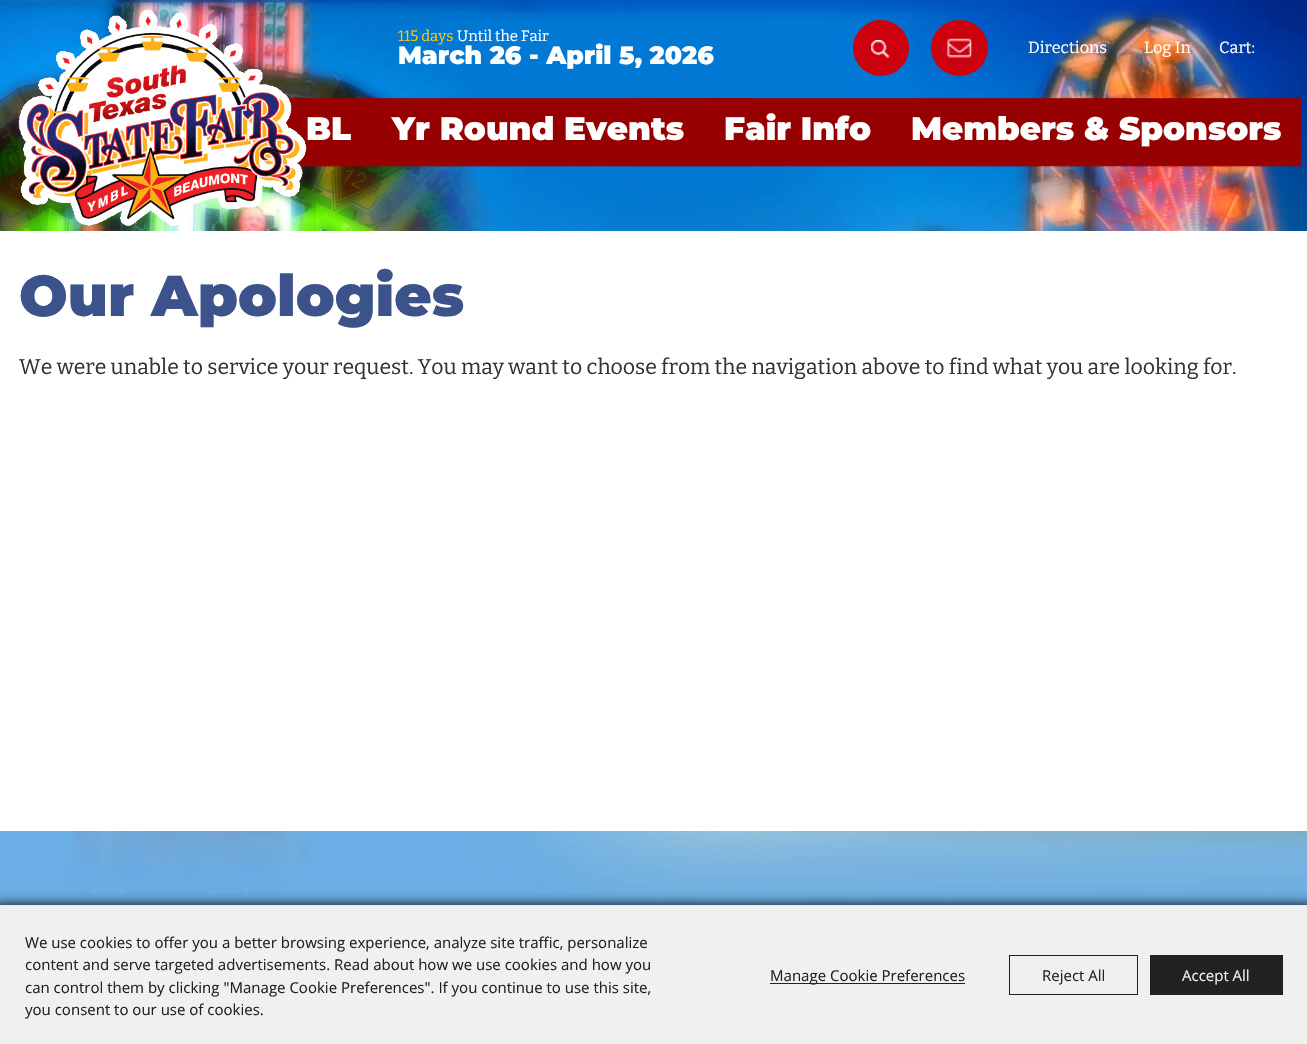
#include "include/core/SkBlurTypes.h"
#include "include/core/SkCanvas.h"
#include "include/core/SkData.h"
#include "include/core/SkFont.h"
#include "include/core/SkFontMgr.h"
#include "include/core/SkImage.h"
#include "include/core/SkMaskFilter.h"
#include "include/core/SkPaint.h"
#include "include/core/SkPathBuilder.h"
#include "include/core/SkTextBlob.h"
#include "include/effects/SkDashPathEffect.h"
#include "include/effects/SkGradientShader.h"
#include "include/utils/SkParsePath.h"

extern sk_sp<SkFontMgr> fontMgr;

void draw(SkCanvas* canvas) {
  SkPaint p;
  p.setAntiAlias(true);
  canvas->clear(SkColorSetRGB(106, 173, 228));
  canvas->drawImageRect(SkImages::DeferredFromEncodedData(SkData::MakeFromFileName("images/1.png")), SkRect::MakeLTRB(0, 0, 1307, 903), SkSamplingOptions());
  canvas->drawImageRect(SkImages::DeferredFromEncodedData(SkData::MakeFromFileName("images/5.png")), SkRect::MakeLTRB(286, 98, 1302, 168), SkSamplingOptions());
  canvas->drawImageRect(SkImages::DeferredFromEncodedData(SkData::MakeFromFileName("images/2.png")), SkRect::MakeLTRB(18, 9, 307, 226), SkSamplingOptions());
  p.setStyle(SkPaint::kStroke_Style);
  p.setStrokeWidth(3);
  p.setColor(SkColorSetRGB(205, 0, 14));
  canvas->drawPath(SkPathBuilder().moveTo(880, 21.5f).lineTo(878.5f, 21.5f).lineTo(878.5f, 74.5f).lineTo(880, 74.5f).cubicTo(871.5f, 74.5f, 864.5f, 67.5f, 864.5f, 59).lineTo(864.5f, 37).cubicTo(864.5f, 28.5f, 871.5f, 21.5f, 880, 21.5f).close().detach(), p);
  p.setStyle(SkPaint::kFill_Style);
  canvas->drawCircle(881, 48, 28, p);
  canvas->drawImageRect(SkImages::DeferredFromEncodedData(SkData::MakeFromFileName("images/3.png")), SkRect::MakeLTRB(871, 40, 890, 58), SkSamplingOptions());
  canvas->drawRoundRect(SkRect::MakeLTRB(931, 20, 988, 76), 28, 28, p);
  canvas->drawImageRect(SkImages::DeferredFromEncodedData(SkData::MakeFromFileName("images/4.png")), SkRect::MakeLTRB(947, 38, 972, 58), SkSamplingOptions());
  p.setColor(SK_ColorWHITE);
  canvas->drawRect(SkRect::MakeLTRB(0, 231, 1307, 831), p);
  p.setColor(SK_ColorBLACK);
  p.setMaskFilter(SkMaskFilter::MakeBlur(kNormal_SkBlurStyle, 6));
  canvas->drawRect(SkRect::MakeLTRB(-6, 905, 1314, 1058), p);
  p.setMaskFilter(nullptr);
  p.setColor(SkColorSetRGB(240, 240, 240));
  canvas->drawRect(SkRect::MakeLTRB(0, 905, 1307, 1044), p);
  p.setColor(SkColorSetRGB(34, 34, 34));
  canvas->drawRect(SkRect::MakeLTRB(770, 983, 965, 984), p);
  p.setStyle(SkPaint::kStroke_Style);
  p.setStrokeWidth(1);
  canvas->drawRect(SkRect::MakeLTRB(1009.5f, 955.5f, 1137.5f, 994.5f), p);
  p.setStyle(SkPaint::kFill_Style);
  canvas->drawRect(SkRect::MakeLTRB(1150, 955, 1283, 995), p);
  SkFont font1(fontMgr->matchFamilyStyle("Bitter", SkFontStyle::Normal()), 15);
  font1.setSubpixel(true);
  p.setColor(SkColorSetRGB(255, 199, 13));
  canvas->drawString("115 days", 398, 41, font1, p);
  p.setColor(SK_ColorWHITE);
  canvas->drawString("Until the Fair", 457, 41, font1, p);
  SkFont font2(fontMgr->matchFamilyStyle("Montserrat", SkFontStyle(100, SkFontStyle::kNormal_Width, SkFontStyle::kUpright_Slant)), 25);
  font2.setSubpixel(true);
  canvas->drawString("March 26 - April 5, 2026", 398, 64, font2, p);
  SkFont font3(fontMgr->matchFamilyStyle("Bitter", SkFontStyle::Normal()), 16.25f);
  font3.setSubpixel(true);
  canvas->drawString("Directions", 1028, 53, font3, p);
  canvas->drawString("Log In", 1144, 53, font3, p);
  canvas->drawString("Cart:", 1219, 53, font3, p);
  SkFont font4(fontMgr->matchFamilyStyle("Montserrat", SkFontStyle(100, SkFontStyle::kNormal_Width, SkFontStyle::kUpright_Slant)), 32.5f);
  font4.setSubpixel(true);
  canvas->drawString("BL", 306, 140, font4, p);
  canvas->drawString("Yr Round Events", 392, 140, font4, p);
  canvas->drawString("Fair Info", 724, 140, font4, p);
  canvas->drawString("Members & Sponsors", 911, 140, font4, p);
  SkFont font5(fontMgr->matchFamilyStyle("Montserrat", SkFontStyle(100, SkFontStyle::kNormal_Width, SkFontStyle::kUpright_Slant)), 57.5f);
  font5.setSubpixel(true);
  p.setColor(SkColorSetRGB(59, 83, 138));
  canvas->drawString("Our Apologies", 19, 316, font5, p);
  SkFont font6(fontMgr->matchFamilyStyle("Bitter", SkFontStyle::Normal()), 21.25f);
  font6.setSubpixel(true);
  p.setColor(SkColorSetRGB(50, 50, 50));
  canvas->drawString("We were unable to service your request. You may want to choose from the navigation above to find what you are looking for.", 19, 374, font6, p);
  SkFont font7(fontMgr->matchFamilyStyle("Open Sans", SkFontStyle::Normal()), 15);
  font7.setSubpixel(true);
  p.setColor(SkColorSetRGB(34, 34, 34));
  canvas->drawString("We use cookies to offer you a better browsing experience, analyze site traffic, personalize", 25, 948, font7, p);
  canvas->drawString("content and serve targeted advertisements. Read about how we use cookies and how you", 25, 970, font7, p);
  canvas->drawString("can control them by clicking \"Manage Cookie Preferences\". If you continue to use this site,", 25, 993, font7, p);
  canvas->drawString("you consent to our use of cookies.", 25, 1015, font7, p);
  canvas->drawString("Manage Cookie Preferences", 770, 981, font7, p);
  canvas->drawString("Reject All", 1042, 981, font7, p);
  p.setColor(SkColorSetRGB(240, 240, 240));
  canvas->drawString("Accept All", 1182, 981, font7, p);
}
